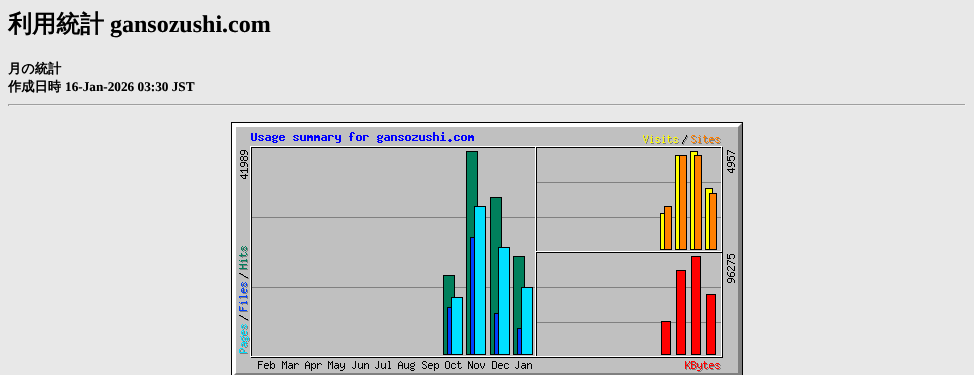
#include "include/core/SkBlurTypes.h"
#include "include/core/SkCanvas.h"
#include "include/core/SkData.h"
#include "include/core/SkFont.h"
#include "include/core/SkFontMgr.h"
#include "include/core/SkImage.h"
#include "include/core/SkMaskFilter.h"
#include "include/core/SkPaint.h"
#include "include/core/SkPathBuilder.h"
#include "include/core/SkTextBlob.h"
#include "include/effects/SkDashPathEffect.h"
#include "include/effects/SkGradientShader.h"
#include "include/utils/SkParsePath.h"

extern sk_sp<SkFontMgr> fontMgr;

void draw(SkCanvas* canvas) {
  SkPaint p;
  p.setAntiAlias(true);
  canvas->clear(SkColorSetRGB(232, 232, 232));
  p.setColor(SkColorSetRGB(159, 159, 159));
  canvas->drawRect(SkRect::MakeLTRB(8, 104, 966, 105), p);
  p.setColor(SkColorSetRGB(238, 238, 238));
  canvas->drawRect(SkRect::MakeLTRB(965, 104, 966, 106), p);
  canvas->drawRect(SkRect::MakeLTRB(8, 105, 966, 106), p);
  p.setColor(SkColorSetRGB(159, 159, 159));
  canvas->drawRect(SkRect::MakeLTRB(8, 104, 9, 106), p);
  canvas->drawImageRect(SkImages::DeferredFromEncodedData(SkData::MakeFromFileName("images/1.png")), SkRect::MakeLTRB(231, 122, 743, 375), SkSamplingOptions());
  SkFont font1(fontMgr->matchFamilyStyle("WenQuanYi Zen Hei", SkFontStyle::Bold()), 24);
  font1.setSubpixel(true);
  p.setColor(SK_ColorBLACK);
  canvas->drawString("利用統計", 8, 32, font1, p);
  SkFont font2(fontMgr->matchFamilyStyle("Liberation Serif", SkFontStyle::Bold()), 24);
  font2.setSubpixel(true);
  canvas->drawString("gansozushi.com", 110, 32, font2, p);
  SkFont font3(fontMgr->matchFamilyStyle("WenQuanYi Zen Hei", SkFontStyle::Bold()), 13.25f);
  font3.setSubpixel(true);
  canvas->drawString("月の統計", 8, 73, font3, p);
  canvas->drawString("作成日時", 8, 91, font3, p);
  SkFont font4(fontMgr->matchFamilyStyle("Liberation Serif", SkFontStyle::Bold()), 13.25f);
  font4.setSubpixel(true);
  canvas->drawString("16-Jan-2026 03:30 JST", 65, 91, font4, p);
}
